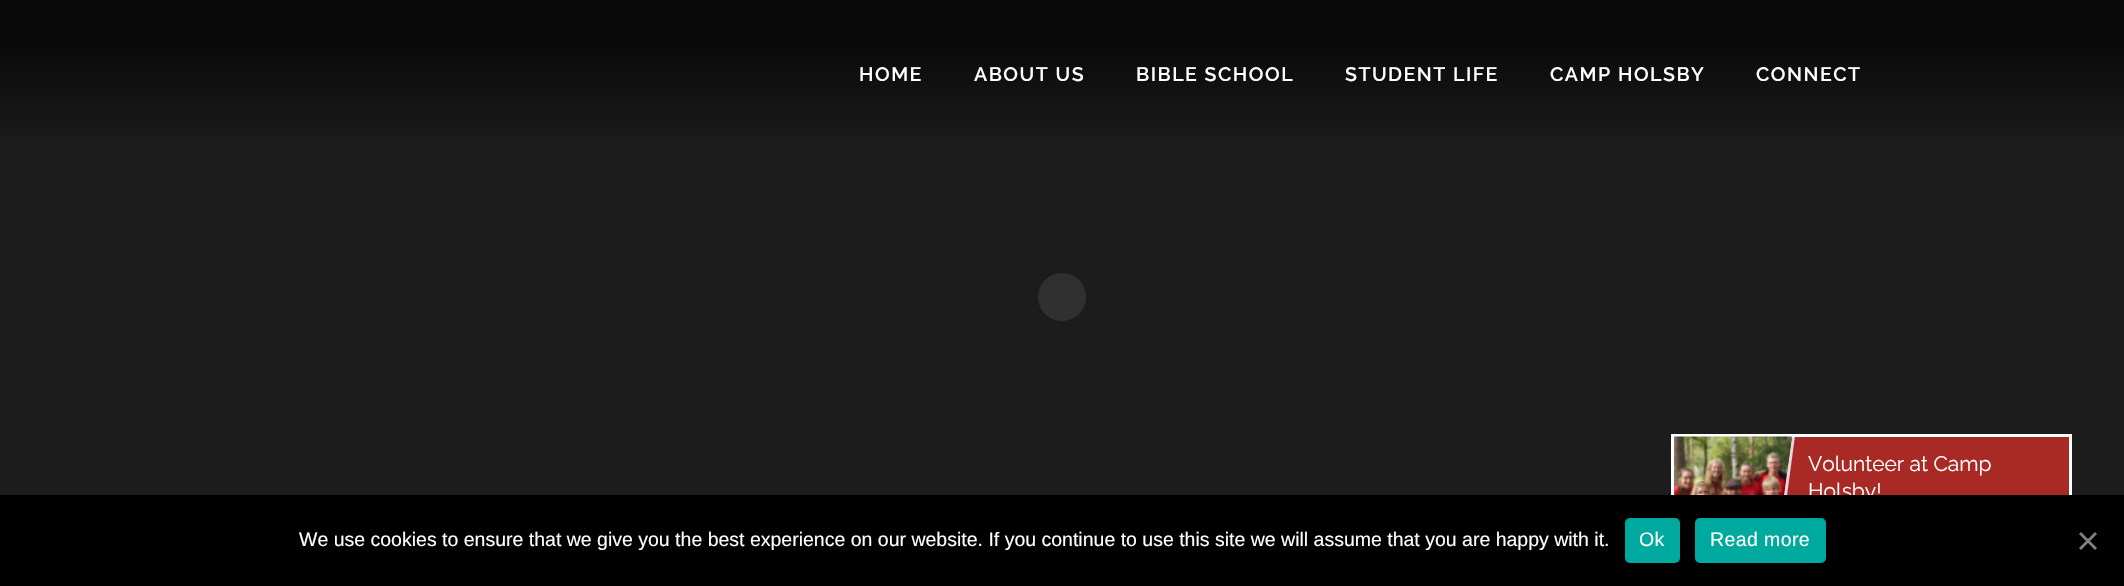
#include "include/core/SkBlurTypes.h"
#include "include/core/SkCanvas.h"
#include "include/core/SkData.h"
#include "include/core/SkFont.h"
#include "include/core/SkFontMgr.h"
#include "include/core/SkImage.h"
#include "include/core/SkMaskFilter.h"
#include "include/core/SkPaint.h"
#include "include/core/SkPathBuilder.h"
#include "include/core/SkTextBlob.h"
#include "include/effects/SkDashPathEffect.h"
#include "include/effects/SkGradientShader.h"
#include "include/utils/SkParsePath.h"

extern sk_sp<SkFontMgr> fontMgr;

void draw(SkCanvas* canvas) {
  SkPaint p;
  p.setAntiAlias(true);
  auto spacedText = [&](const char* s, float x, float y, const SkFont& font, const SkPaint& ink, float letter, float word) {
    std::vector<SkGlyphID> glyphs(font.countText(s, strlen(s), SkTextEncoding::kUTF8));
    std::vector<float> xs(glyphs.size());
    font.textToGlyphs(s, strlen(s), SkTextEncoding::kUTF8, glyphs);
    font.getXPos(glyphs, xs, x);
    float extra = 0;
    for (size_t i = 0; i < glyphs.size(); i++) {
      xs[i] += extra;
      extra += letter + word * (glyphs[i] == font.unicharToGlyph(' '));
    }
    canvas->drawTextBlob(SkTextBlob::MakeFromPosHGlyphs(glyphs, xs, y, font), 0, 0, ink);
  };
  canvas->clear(SkColorSetRGB(28, 28, 28));
  {
    const SkColor colors[] = {SkColorSetRGB(10, 10, 10), SkColorSetRGB(10, 10, 10), SkColorSetRGB(28, 28, 28)};
    const float stops[] = {0.01f, 0.3f, 1};
    const SkPoint ends[] = {{1062, 0}, {1062, 150}};
    p.setShader(SkGradientShader::MakeLinear(ends, colors, stops, 3, SkTileMode::kClamp));
    p.setAlpha(255);
  }
  canvas->drawRect(SkRect::MakeLTRB(0, 0, 2124, 135), p);
  p.setShader(nullptr);
  p.setColor(SkColorSetRGB(48, 48, 48));
  canvas->drawCircle(1062, 297, 24, p);
  p.setStyle(SkPaint::kStroke_Style);
  p.setStrokeWidth(3);
  p.setColor(SK_ColorWHITE);
  canvas->drawRect(SkRect::MakeLTRB(1672.5f, 435.5f, 2070.5f, 541.5f), p);
  p.setStyle(SkPaint::kFill_Style);
  p.setColor(SkColorSetRGB(169, 42, 36));
  canvas->drawRect(SkRect::MakeLTRB(1674, 437, 2069, 495), p);
  canvas->save();
  canvas->clipRect(SkRect::MakeLTRB(1674, 437, 2069, 540));
  p.setColor(SkColorSetRGB(231, 213, 229));
  canvas->drawPath(SkPathBuilder().moveTo(1792, 436).lineTo(1795, 436).lineTo(1781, 540).lineTo(1778, 540).close().detach(), p);
  canvas->restore();
  canvas->drawImageRect(SkImages::DeferredFromEncodedData(SkData::MakeFromFileName("images/1.png")), SkRect::MakeLTRB(1674, 436, 1792, 495), SkSamplingOptions());
  SkFont font1(fontMgr->matchFamilyStyle("Raleway", SkFontStyle(600, SkFontStyle::kNormal_Width, SkFontStyle::kUpright_Slant)), 19.5f);
  font1.setSubpixel(true);
  p.setColor(SK_ColorWHITE);
  spacedText("HOME", 859, 81, font1, p, 1.5f, 0);
  spacedText("ABOUT US", 974, 81, font1, p, 1.5f, 0);
  spacedText("BIBLE SCHOOL", 1136, 81, font1, p, 1.5f, 0);
  spacedText("STUDENT LIFE", 1345, 81, font1, p, 1.5f, 0);
  spacedText("CAMP HOLSBY", 1550, 81, font1, p, 1.5f, 0);
  spacedText("CONNECT", 1756, 81, font1, p, 1.5f, 0);
  SkFont font2(fontMgr->matchFamilyStyle("Raleway", SkFontStyle::Normal()), 21);
  font2.setSubpixel(true);
  canvas->drawString("Volunteer at Camp", 1808, 471, font2, p);
  canvas->drawString("Holsby!", 1808, 498, font2, p);
  p.setColor(SK_ColorBLACK);
  canvas->drawRect(SkRect::MakeLTRB(0, 495, 2124, 586), p);
  SkFont font3(fontMgr->matchFamilyStyle("Liberation Sans", SkFontStyle::Normal()), 19.5f);
  font3.setSubpixel(true);
  p.setColor(SK_ColorWHITE);
  canvas->drawString("We use cookies to ensure that we give you the best experience on our website. If you continue to use this site we will assume that you are happy with it.", 299, 546, font3, p);
  p.setColor(SkColorSetRGB(0, 169, 157));
  canvas->drawRoundRect(SkRect::MakeLTRB(1625, 518, 1680, 563), 5, 5, p);
  p.setColor(SK_ColorWHITE);
  spacedText("Ok", 1639, 546, font3, p, 0.4f, 0);
  p.setColor(SkColorSetRGB(0, 169, 157));
  canvas->drawRoundRect(SkRect::MakeLTRB(1695, 518, 1826, 563), 5, 5, p);
  p.setColor(SK_ColorWHITE);
  spacedText("Read more", 1710, 546, font3, p, 0.4f, 0);
  p.setColor(SkColorSetRGB(128, 128, 128));
  canvas->drawPath(SkPathBuilder().moveTo(2095, 532).lineTo(2097, 534).lineTo(2081, 550).lineTo(2079, 548).close().detach(), p);
  canvas->drawPath(SkPathBuilder().moveTo(2079, 534).lineTo(2081, 532).lineTo(2097, 548).lineTo(2095, 550).close().detach(), p);
}
